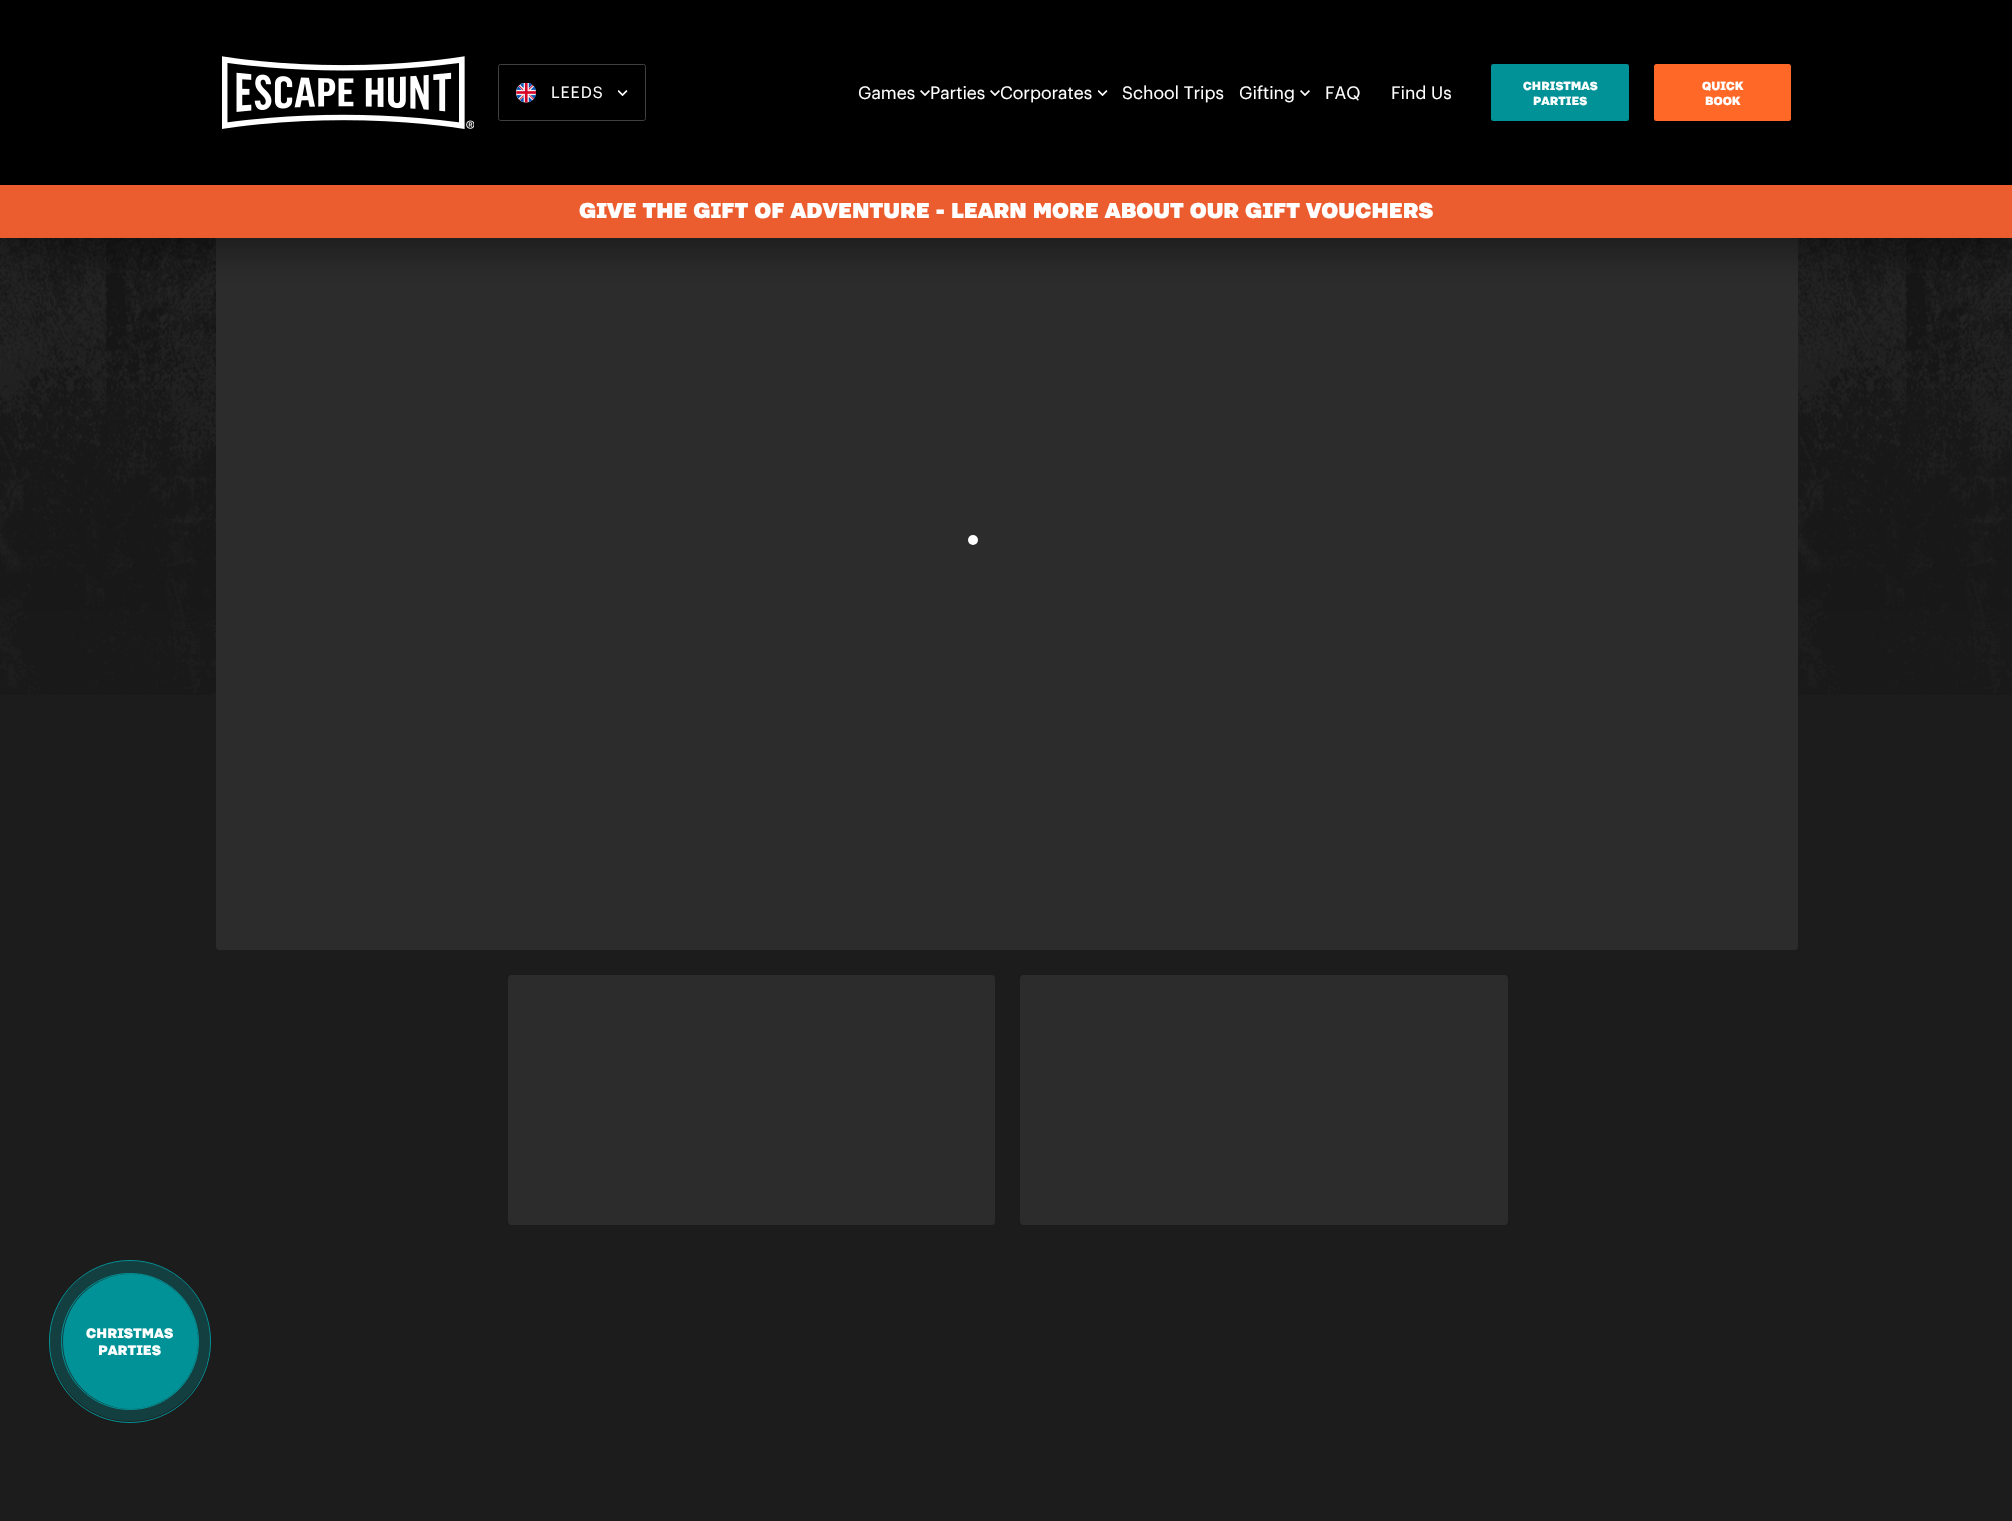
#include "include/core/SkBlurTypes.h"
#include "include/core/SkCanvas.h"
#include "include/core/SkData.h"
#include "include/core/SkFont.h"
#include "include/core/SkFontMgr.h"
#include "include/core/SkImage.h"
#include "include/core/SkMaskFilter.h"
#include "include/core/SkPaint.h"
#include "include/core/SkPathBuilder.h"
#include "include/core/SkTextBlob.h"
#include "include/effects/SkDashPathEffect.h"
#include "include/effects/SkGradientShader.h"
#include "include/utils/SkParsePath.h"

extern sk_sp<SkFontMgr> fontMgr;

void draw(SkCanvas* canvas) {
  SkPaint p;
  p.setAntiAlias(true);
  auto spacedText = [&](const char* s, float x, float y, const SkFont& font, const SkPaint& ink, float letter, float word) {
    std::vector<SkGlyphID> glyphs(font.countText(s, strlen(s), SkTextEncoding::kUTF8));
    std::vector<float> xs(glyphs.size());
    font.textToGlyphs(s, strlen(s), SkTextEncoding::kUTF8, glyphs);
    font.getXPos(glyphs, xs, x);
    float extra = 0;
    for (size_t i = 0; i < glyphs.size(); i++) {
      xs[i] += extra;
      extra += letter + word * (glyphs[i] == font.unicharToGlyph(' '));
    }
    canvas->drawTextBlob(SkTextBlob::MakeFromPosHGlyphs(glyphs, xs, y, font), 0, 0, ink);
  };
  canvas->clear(SkColorSetRGB(28, 28, 28));
  canvas->drawImageRect(SkImages::DeferredFromEncodedData(SkData::MakeFromFileName("images/1.png")), SkRect::MakeLTRB(0, 238, 2012, 695), SkSamplingOptions());
  p.setColor(SkColorSetRGB(44, 44, 44));
  canvas->drawRoundRect(SkRect::MakeLTRB(216, 200, 1798, 950), 4, 4, p);
  p.setColor(SkColorSetARGB(102, 0, 0, 0));
  p.setMaskFilter(SkMaskFilter::MakeBlur(kNormal_SkBlurStyle, 17.5f));
  canvas->drawRect(SkRect::MakeLTRB(0, 13, 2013, 250), p);
  p.setMaskFilter(nullptr);
  p.setColor(SK_ColorBLACK);
  canvas->drawRect(SkRect::MakeLTRB(0, 0, 2012, 185), p);
  canvas->drawImageRect(SkImages::DeferredFromEncodedData(SkData::MakeFromFileName("images/2.png")), SkRect::MakeLTRB(222, 56, 474, 129), SkSamplingOptions());
  p.setStyle(SkPaint::kStroke_Style);
  p.setStrokeWidth(1);
  p.setColor(SkColorSetRGB(64, 64, 64));
  canvas->drawRoundRect(SkRect::MakeLTRB(498.5f, 64.5f, 645.5f, 120.5f), 2, 2, p);
  canvas->drawImageRect(SkImages::DeferredFromEncodedData(SkData::MakeFromFileName("images/3.png")), SkRect::MakeLTRB(516, 83, 536, 103), SkSamplingOptions());
  canvas->drawImageRect(SkImages::DeferredFromEncodedData(SkData::MakeFromFileName("images/4.png")), SkRect::MakeLTRB(618, 90, 628, 96), SkSamplingOptions());
  canvas->drawImageRect(SkImages::DeferredFromEncodedData(SkData::MakeFromFileName("images/5.png")), SkRect::MakeLTRB(920, 90, 930, 96), SkSamplingOptions());
  canvas->drawImageRect(SkImages::DeferredFromEncodedData(SkData::MakeFromFileName("images/5.png")), SkRect::MakeLTRB(990, 90, 1000, 96), SkSamplingOptions());
  canvas->drawImageRect(SkImages::DeferredFromEncodedData(SkData::MakeFromFileName("images/4.png")), SkRect::MakeLTRB(1098, 90, 1108, 96), SkSamplingOptions());
  canvas->drawImageRect(SkImages::DeferredFromEncodedData(SkData::MakeFromFileName("images/5.png")), SkRect::MakeLTRB(1300, 90, 1310, 96), SkSamplingOptions());
  p.setStyle(SkPaint::kFill_Style);
  p.setColor(SkColorSetRGB(0, 146, 150));
  canvas->drawRoundRect(SkRect::MakeLTRB(1491, 64, 1629, 121), 2.5f, 2.5f, p);
  p.setColor(SkColorSetRGB(255, 104, 38));
  canvas->drawRoundRect(SkRect::MakeLTRB(1654, 64, 1791, 121), 2.5f, 2.5f, p);
  p.setColor(SkColorSetRGB(235, 92, 46));
  canvas->drawRect(SkRect::MakeLTRB(0, 185, 2012, 238), p);
  p.setColor(SK_ColorWHITE);
  canvas->drawCircle(973, 540, 5, p);
  p.setColor(SkColorSetRGB(44, 44, 44));
  canvas->drawRoundRect(SkRect::MakeLTRB(508, 975, 995, 1225), 4, 4, p);
  canvas->drawRoundRect(SkRect::MakeLTRB(1020, 975, 1508, 1225), 4, 4, p);
  p.setColor(SkColorSetRGB(20, 63, 65));
  canvas->drawCircle(130, 1341, 80, p);
  p.setStyle(SkPaint::kStroke_Style);
  p.setColor(SkColorSetRGB(0, 146, 150));
  canvas->drawRoundRect(SkRect::MakeLTRB(49.5f, 1260.5f, 210.5f, 1422.5f), 80.5f, 80.5f, p);
  canvas->drawRoundRect(SkRect::MakeLTRB(61.5f, 1273.5f, 198.5f, 1409.5f), 68, 68, p);
  p.setStyle(SkPaint::kFill_Style);
  canvas->drawCircle(130.5f, 1341.5f, 67.5f, p);
  SkFont font1(fontMgr->matchFamilyStyle("Graphik", SkFontStyle::Normal()), 16);
  font1.setSubpixel(true);
  p.setColor(SK_ColorWHITE);
  spacedText("LEEDS", 551, 98, font1, p, 1, 0);
  SkFont font2(fontMgr->matchFamilyStyle("Graphik", SkFontStyle::Normal()), 17.5f);
  font2.setSubpixel(true);
  canvas->drawString("Games", 858, 99, font2, p);
  canvas->drawString("Parties", 930, 99, font2, p);
  canvas->drawString("Corporates", 1000, 99, font2, p);
  canvas->drawString("School Trips", 1122, 99, font2, p);
  canvas->drawString("Gifting", 1239, 99, font2, p);
  canvas->drawString("FAQ", 1325, 99, font2, p);
  canvas->drawString("Find Us", 1391, 99, font2, p);
  SkFont font3(fontMgr->matchFamilyStyle("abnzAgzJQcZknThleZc", SkFontStyle(900, SkFontStyle::kNormal_Width, SkFontStyle::kUpright_Slant)), 15);
  font3.setSubpixel(true);
  canvas->drawString("CHRISTMAS", 1523, 90, font3, p);
  canvas->drawString("PARTIES", 1533, 105, font3, p);
  canvas->drawString("QUICK", 1702, 90, font3, p);
  canvas->drawString("BOOK", 1705, 105, font3, p);
  SkFont font4(fontMgr->matchFamilyStyle("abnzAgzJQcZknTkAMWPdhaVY", SkFontStyle(900, SkFontStyle::kNormal_Width, SkFontStyle::kUpright_Slant)), 27.5f);
  font4.setSubpixel(true);
  canvas->drawString("GIVE THE GIFT OF ADVENTURE - LEARN MORE ABOUT OUR GIFT VOUCHERS", 579, 218, font4, p);
  SkFont font5(fontMgr->matchFamilyStyle("abnzAgzJQcZknThleZc", SkFontStyle(900, SkFontStyle::kNormal_Width, SkFontStyle::kUpright_Slant)), 17.5f);
  font5.setSubpixel(true);
  canvas->drawString("CHRISTMAS", 86, 1338, font5, p);
  canvas->drawString("PARTIES", 98, 1355, font5, p);
}
